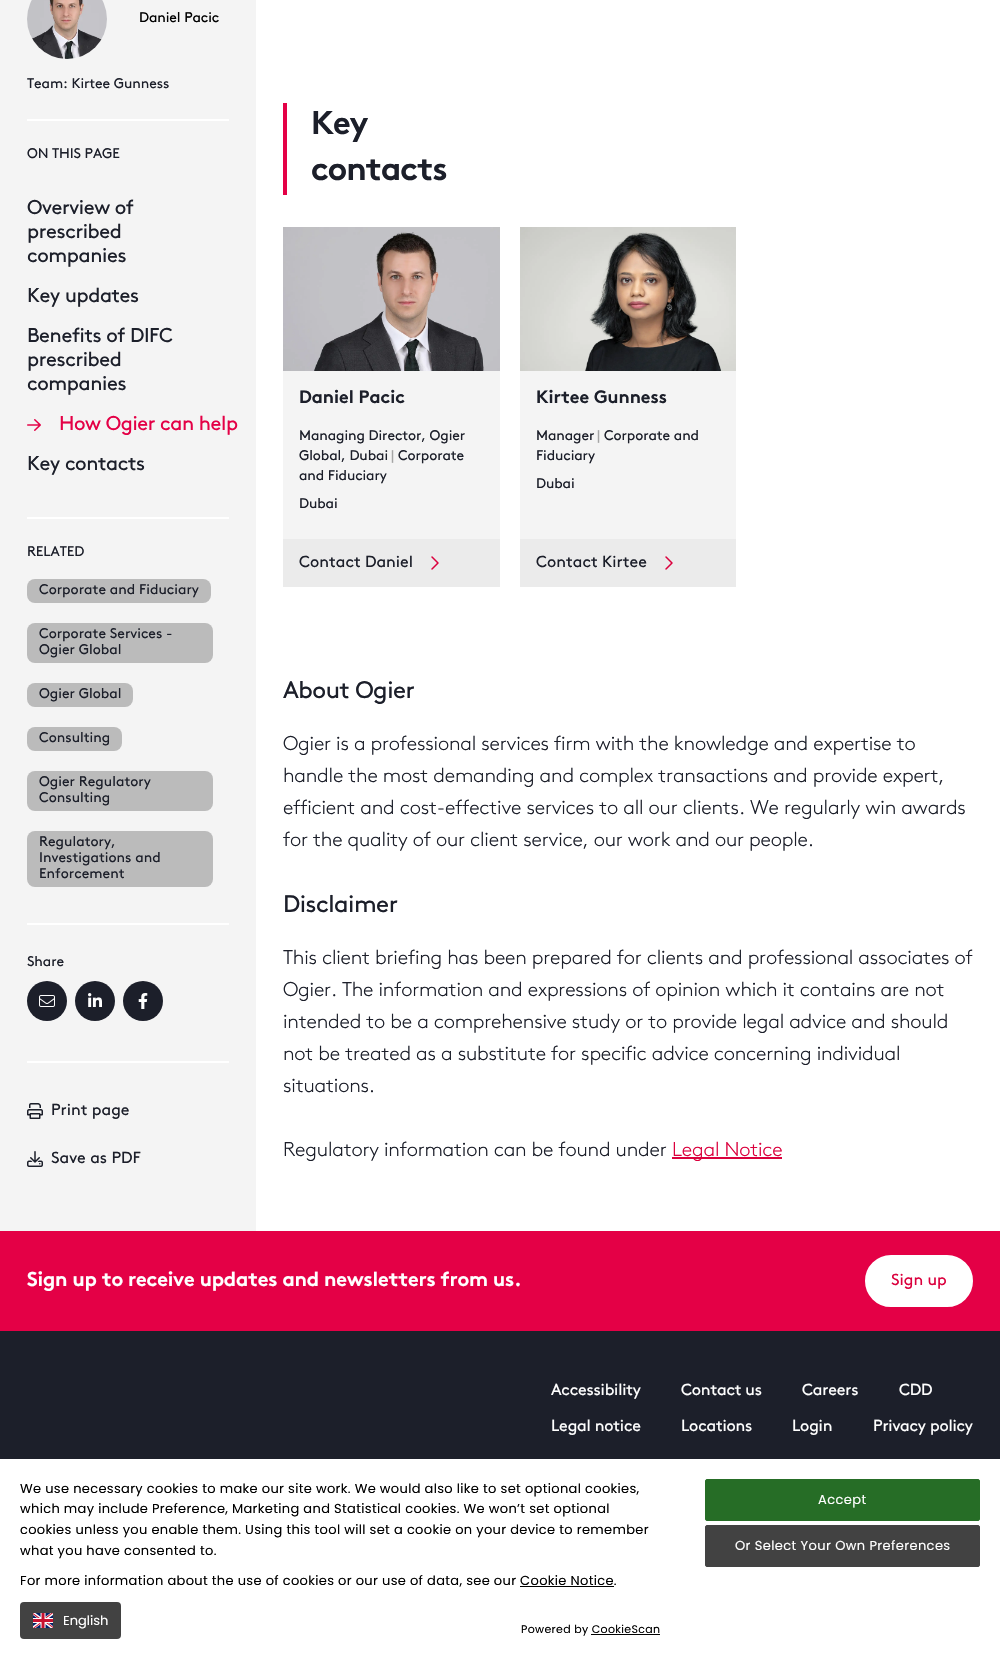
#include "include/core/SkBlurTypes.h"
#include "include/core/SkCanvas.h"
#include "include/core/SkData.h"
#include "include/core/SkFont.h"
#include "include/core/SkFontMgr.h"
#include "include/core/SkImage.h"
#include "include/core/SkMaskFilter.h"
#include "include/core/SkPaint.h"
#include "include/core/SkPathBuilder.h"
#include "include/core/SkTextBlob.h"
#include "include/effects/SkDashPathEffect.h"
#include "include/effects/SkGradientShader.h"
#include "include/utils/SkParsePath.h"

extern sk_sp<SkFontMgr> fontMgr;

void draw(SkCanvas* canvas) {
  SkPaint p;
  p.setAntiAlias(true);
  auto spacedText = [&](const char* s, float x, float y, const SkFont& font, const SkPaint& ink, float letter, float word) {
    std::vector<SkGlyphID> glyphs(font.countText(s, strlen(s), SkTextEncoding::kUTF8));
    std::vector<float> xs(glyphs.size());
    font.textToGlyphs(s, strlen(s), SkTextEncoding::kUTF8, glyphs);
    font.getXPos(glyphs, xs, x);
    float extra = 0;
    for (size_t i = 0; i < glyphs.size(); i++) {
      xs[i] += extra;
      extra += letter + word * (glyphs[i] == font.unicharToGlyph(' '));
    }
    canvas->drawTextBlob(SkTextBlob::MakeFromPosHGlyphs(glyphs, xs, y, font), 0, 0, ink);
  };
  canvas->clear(SK_ColorWHITE);
  p.setColor(SkColorSetRGB(244, 244, 244));
  canvas->drawRect(SkRect::MakeLTRB(0, 0, 256, 1231), p);
  canvas->drawImageRect(SkImages::DeferredFromEncodedData(SkData::MakeFromFileName("images/1.png")), SkRect::MakeLTRB(27, 0, 107, 59), SkSamplingOptions());
  p.setColor(SK_ColorWHITE);
  canvas->drawRect(SkRect::MakeLTRB(27, 119, 229, 121), p);
  canvas->drawImageRect(SkImages::DeferredFromEncodedData(SkData::MakeFromFileName("images/2.png")), SkRect::MakeLTRB(27, 419, 41, 431), SkSamplingOptions());
  canvas->drawRect(SkRect::MakeLTRB(27, 517, 229, 519), p);
  p.setColor(SkColorSetRGB(187, 187, 187));
  canvas->drawRoundRect(SkRect::MakeLTRB(27, 579, 211, 603), 8, 8, p);
  canvas->drawRoundRect(SkRect::MakeLTRB(27, 623, 213, 663), 8, 8, p);
  canvas->drawRoundRect(SkRect::MakeLTRB(27, 683, 133, 707), 8, 8, p);
  canvas->drawRoundRect(SkRect::MakeLTRB(27, 727, 122, 751), 8, 8, p);
  canvas->drawRoundRect(SkRect::MakeLTRB(27, 771, 213, 811), 8, 8, p);
  canvas->drawRoundRect(SkRect::MakeLTRB(27, 831, 213, 887), 8, 8, p);
  p.setColor(SK_ColorWHITE);
  canvas->drawRect(SkRect::MakeLTRB(27, 923, 229, 925), p);
  p.setColor(SkColorSetRGB(28, 31, 42));
  canvas->drawCircle(47, 1001, 20, p);
  canvas->drawImageRect(SkImages::DeferredFromEncodedData(SkData::MakeFromFileName("images/3.png")), SkRect::MakeLTRB(39, 995, 55, 1007), SkSamplingOptions());
  canvas->drawCircle(95, 1001, 20, p);
  canvas->drawImageRect(SkImages::DeferredFromEncodedData(SkData::MakeFromFileName("images/4.png")), SkRect::MakeLTRB(88, 993, 102, 1007), SkSamplingOptions());
  canvas->drawCircle(143, 1001, 20, p);
  canvas->drawImageRect(SkImages::DeferredFromEncodedData(SkData::MakeFromFileName("images/5.png")), SkRect::MakeLTRB(138, 993, 148, 1009), SkSamplingOptions());
  p.setColor(SK_ColorWHITE);
  canvas->drawRect(SkRect::MakeLTRB(27, 1061, 229, 1063), p);
  canvas->drawImageRect(SkImages::DeferredFromEncodedData(SkData::MakeFromFileName("images/6.png")), SkRect::MakeLTRB(27, 1103, 43, 1119), SkSamplingOptions());
  canvas->drawImageRect(SkImages::DeferredFromEncodedData(SkData::MakeFromFileName("images/7.png")), SkRect::MakeLTRB(27, 1151, 43, 1167), SkSamplingOptions());
  p.setColor(SkColorSetRGB(228, 0, 70));
  canvas->drawRect(SkRect::MakeLTRB(283, 103, 287, 195), p);
  p.setColor(SkColorSetRGB(244, 244, 244));
  canvas->drawRect(SkRect::MakeLTRB(283, 371, 500, 539), p);
  canvas->drawImageRect(SkImages::DeferredFromEncodedData(SkData::MakeFromFileName("images/8.png")), SkRect::MakeLTRB(283, 227, 500, 371), SkSamplingOptions());
  p.setColor(SkColorSetRGB(235, 235, 235));
  canvas->drawRect(SkRect::MakeLTRB(283, 539, 500, 587), p);
  canvas->drawImageRect(SkImages::DeferredFromEncodedData(SkData::MakeFromFileName("images/9.png")), SkRect::MakeLTRB(431, 556, 439, 570), SkSamplingOptions());
  p.setColor(SkColorSetRGB(244, 244, 244));
  canvas->drawRect(SkRect::MakeLTRB(520, 371, 736, 539), p);
  canvas->drawImageRect(SkImages::DeferredFromEncodedData(SkData::MakeFromFileName("images/10.png")), SkRect::MakeLTRB(520, 227, 736, 371), SkSamplingOptions());
  p.setColor(SkColorSetRGB(235, 235, 235));
  canvas->drawRect(SkRect::MakeLTRB(520, 539, 736, 587), p);
  canvas->drawImageRect(SkImages::DeferredFromEncodedData(SkData::MakeFromFileName("images/9.png")), SkRect::MakeLTRB(665, 556, 673, 570), SkSamplingOptions());
  p.setColor(SkColorSetRGB(219, 0, 61));
  canvas->drawRect(SkRect::MakeLTRB(672, 1157, 782, 1159), p);
  p.setColor(SkColorSetRGB(228, 0, 70));
  canvas->drawRect(SkRect::MakeLTRB(0, 1231, 1000, 1331), p);
  p.setColor(SK_ColorWHITE);
  canvas->drawRoundRect(SkRect::MakeLTRB(866, 1256, 972, 1306), 25, 25, p);
  p.setStyle(SkPaint::kStroke_Style);
  p.setStrokeWidth(2);
  canvas->drawRoundRect(SkRect::MakeLTRB(866, 1256, 972, 1306), 25, 25, p);
  p.setStyle(SkPaint::kFill_Style);
  p.setColor(SkColorSetRGB(28, 31, 42));
  canvas->drawRect(SkRect::MakeLTRB(0, 1331, 1000, 1459), p);
  p.setColor(SK_ColorBLACK);
  canvas->drawRect(SkRect::MakeLTRB(520, 1586, 614, 1587), p);
  p.setColor(SkColorSetRGB(66, 66, 66));
  canvas->drawRoundRect(SkRect::MakeLTRB(20, 1602, 121, 1639), 4, 4, p);
  canvas->drawRect(SkRect::MakeLTRB(21, 1603, 120, 1638), p);
  canvas->drawImageRect(SkImages::DeferredFromEncodedData(SkData::MakeFromFileName("images/11.png")), SkRect::MakeLTRB(33, 1613, 53, 1628), SkSamplingOptions());
  p.setColor(SK_ColorBLACK);
  canvas->drawRect(SkRect::MakeLTRB(591, 1634, 660, 1635), p);
  p.setColor(SkColorSetRGB(38, 109, 38));
  canvas->drawRoundRect(SkRect::MakeLTRB(705.5f, 1479.5f, 979.5f, 1520.5f), 1.5f, 1.5f, p);
  p.setStyle(SkPaint::kStroke_Style);
  p.setStrokeWidth(1);
  canvas->drawRoundRect(SkRect::MakeLTRB(705.5f, 1479.5f, 979.5f, 1520.5f), 1.5f, 1.5f, p);
  p.setStyle(SkPaint::kFill_Style);
  p.setColor(SkColorSetRGB(66, 66, 66));
  canvas->drawRoundRect(SkRect::MakeLTRB(705.5f, 1525.5f, 979.5f, 1566.5f), 1.5f, 1.5f, p);
  p.setStyle(SkPaint::kStroke_Style);
  canvas->drawRoundRect(SkRect::MakeLTRB(705.5f, 1525.5f, 979.5f, 1566.5f), 1.5f, 1.5f, p);
  SkFont font1(fontMgr->matchFamilyStyle("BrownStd", SkFontStyle::Normal()), 14);
  font1.setSubpixel(true);
  p.setStyle(SkPaint::kFill_Style);
  p.setColor(SK_ColorBLACK);
  spacedText("Daniel Pacic", 139, 22, font1, p, -0.1f, 0);
  p.setColor(SkColorSetRGB(28, 31, 42));
  spacedText("Team: Kirtee Gunness", 27, 88, font1, p, -0.1f, 0);
  spacedText("ON THIS PAGE", 27, 158, font1, p, -0.1f, 0);
  SkFont font2(fontMgr->matchFamilyStyle("BrownStd", SkFontStyle::Normal()), 20);
  font2.setSubpixel(true);
  spacedText("Overview of", 27, 214, font2, p, -0.4f, 0);
  spacedText("prescribed", 27, 238, font2, p, -0.4f, 0);
  spacedText("companies", 27, 262, font2, p, -0.4f, 0);
  spacedText("Key updates", 27, 302, font2, p, -0.4f, 0);
  spacedText("Benefits of DIFC", 27, 342, font2, p, -0.4f, 0);
  spacedText("prescribed", 27, 366, font2, p, -0.4f, 0);
  spacedText("companies", 27, 390, font2, p, -0.4f, 0);
  p.setColor(SkColorSetRGB(228, 0, 70));
  spacedText("How Ogier can help", 59, 430, font2, p, -0.4f, 0);
  p.setColor(SkColorSetRGB(28, 31, 42));
  spacedText("Key contacts", 27, 470, font2, p, -0.4f, 0);
  spacedText("RELATED", 27, 556, font1, p, -0.1f, 0);
  canvas->drawString("Corporate and Fiduciary", 39, 594, font1, p);
  canvas->drawString("Corporate Services -", 39, 638, font1, p);
  canvas->drawString("Ogier Global", 39, 654, font1, p);
  canvas->drawString("Ogier Global", 39, 698, font1, p);
  canvas->drawString("Consulting", 39, 742, font1, p);
  canvas->drawString("Ogier Regulatory", 39, 786, font1, p);
  canvas->drawString("Consulting", 39, 802, font1, p);
  canvas->drawString("Regulatory,", 39, 846, font1, p);
  canvas->drawString("Investigations and", 39, 862, font1, p);
  canvas->drawString("Enforcement", 39, 878, font1, p);
  spacedText("Share", 27, 966, font1, p, -0.1f, 0);
  SkFont font3(fontMgr->matchFamilyStyle("BrownStd", SkFontStyle::Normal()), 16);
  font3.setSubpixel(true);
  canvas->drawString("Print page", 51, 1115, font3, p);
  canvas->drawString("Save as PDF", 51, 1163, font3, p);
  SkFont font4(fontMgr->matchFamilyStyle("BrownStd", SkFontStyle::Bold()), 33);
  font4.setSubpixel(true);
  spacedText("Key", 311, 134, font4, p, -1, 0);
  spacedText("contacts", 311, 180, font4, p, -1, 0);
  SkFont font5(fontMgr->matchFamilyStyle("BrownStd", SkFontStyle::Bold()), 18);
  font5.setSubpixel(true);
  canvas->drawString("Daniel Pacic", 299, 403, font5, p);
  spacedText("Managing Director, Ogier", 299, 440, font1, p, -0.1f, 0);
  spacedText("Global, Dubai", 299, 460, font1, p, -0.1f, 0);
  p.setColor(SkColorSetRGB(165, 165, 165));
  spacedText("|", 391, 460, font1, p, -0.1f, 0);
  p.setColor(SkColorSetRGB(28, 31, 42));
  spacedText("Corporate", 398, 460, font1, p, -0.1f, 0);
  spacedText("and Fiduciary", 299, 480, font1, p, -0.1f, 0);
  spacedText("Dubai", 299, 508, font1, p, -0.1f, 0);
  canvas->drawString("Contact Daniel", 299, 567, font3, p);
  canvas->drawString("Kirtee Gunness", 536, 403, font5, p);
  spacedText("Manager", 536, 440, font1, p, -0.1f, 0);
  p.setColor(SkColorSetRGB(165, 165, 165));
  spacedText("|", 597, 440, font1, p, -0.1f, 0);
  p.setColor(SkColorSetRGB(28, 31, 42));
  spacedText("Corporate and", 604, 440, font1, p, -0.1f, 0);
  spacedText("Fiduciary", 536, 460, font1, p, -0.1f, 0);
  spacedText("Dubai", 536, 488, font1, p, -0.1f, 0);
  canvas->drawString("Contact Kirtee", 536, 567, font3, p);
  SkFont font6(fontMgr->matchFamilyStyle("BrownStd", SkFontStyle::Normal()), 24);
  font6.setSubpixel(true);
  spacedText("About Ogier", 283, 698, font6, p, -0.5f, 0);
  SkFont font7(fontMgr->matchFamilyStyle("BrownStd", SkFontStyle(300, SkFontStyle::kNormal_Width, SkFontStyle::kUpright_Slant)), 20);
  font7.setSubpixel(true);
  spacedText("Ogier is a professional services firm with the knowledge and expertise to", 283, 750, font7, p, -0.2f, 0);
  spacedText("handle the most demanding and complex transactions and provide expert,", 283, 782, font7, p, -0.2f, 0);
  spacedText("efficient and cost-effective services to all our clients. We regularly win awards", 283, 814, font7, p, -0.2f, 0);
  spacedText("for the quality of our client service, our work and our people.", 283, 846, font7, p, -0.2f, 0);
  spacedText("Disclaimer", 283, 912, font6, p, -0.5f, 0);
  spacedText("This client briefing has been prepared for clients and professional associates of", 283, 964, font7, p, -0.2f, 0);
  spacedText("Ogier. The information and expressions of opinion which it contains are not", 283, 996, font7, p, -0.2f, 0);
  spacedText("intended to be a comprehensive study or to provide legal advice and should", 283, 1028, font7, p, -0.2f, 0);
  spacedText("not be treated as a substitute for specific advice concerning individual", 283, 1060, font7, p, -0.2f, 0);
  spacedText("situations.", 283, 1092, font7, p, -0.2f, 0);
  spacedText("Regulatory information can be found under", 283, 1156, font7, p, -0.2f, 0);
  p.setColor(SkColorSetRGB(219, 0, 61));
  spacedText("Legal Notice", 672, 1156, font7, p, -0.2f, 0);
  SkFont font8(fontMgr->matchFamilyStyle("BrownStd", SkFontStyle::Bold()), 20);
  font8.setSubpixel(true);
  p.setColor(SK_ColorWHITE);
  spacedText("Sign up to receive updates and newsletters from us.", 27, 1286, font8, p, -0.2f, 0);
  p.setColor(SkColorSetRGB(219, 0, 61));
  canvas->drawString("Sign up", 891, 1285, font3, p);
  p.setColor(SK_ColorWHITE);
  spacedText("Accessibility", 551, 1395, font3, p, -0.2f, 0);
  spacedText("Contact us", 681, 1395, font3, p, -0.2f, 0);
  spacedText("Careers", 802, 1395, font3, p, -0.2f, 0);
  spacedText("CDD", 899, 1395, font3, p, -0.2f, 0);
  spacedText("Legal notice", 551, 1431, font3, p, -0.2f, 0);
  spacedText("Locations", 681, 1431, font3, p, -0.2f, 0);
  spacedText("Login", 792, 1431, font3, p, -0.2f, 0);
  spacedText("Privacy policy", 873, 1431, font3, p, -0.2f, 0);
  SkFont font9(fontMgr->matchFamilyStyle("Poppins", SkFontStyle::Normal()), 13);
  font9.setSubpixel(true);
  p.setColor(SK_ColorBLACK);
  spacedText("We use necessary cookies to make our site work. We would also like to set optional cookies,", 20, 1493, font9, p, 0.33f, 0);
  spacedText("which may include Preference, Marketing and Statistical cookies. We won’t set optional", 20, 1513, font9, p, 0.33f, 0);
  spacedText("cookies unless you enable them. Using this tool will set a cookie on your device to remember", 20, 1534, font9, p, 0.33f, 0);
  spacedText("what you have consented to.", 20, 1555, font9, p, 0.33f, 0);
  spacedText("For more information about the use of cookies or our use of data, see our Cookie Notice.", 20, 1585, font9, p, 0.33f, 0);
  p.setColor(SK_ColorWHITE);
  canvas->drawString("English", 63, 1625, font9, p);
  SkFont font10(fontMgr->matchFamilyStyle("Poppins", SkFontStyle::Normal()), 11);
  font10.setSubpixel(true);
  p.setColor(SK_ColorBLACK);
  spacedText("Powered by CookieScan", 521, 1633, font10, p, 0.33f, 0);
  p.setColor(SK_ColorWHITE);
  spacedText("Accept", 818, 1504, font9, p, 0.4f, 0);
  spacedText("Or Select Your Own Preferences", 735, 1550, font9, p, 0.4f, 0);
}
